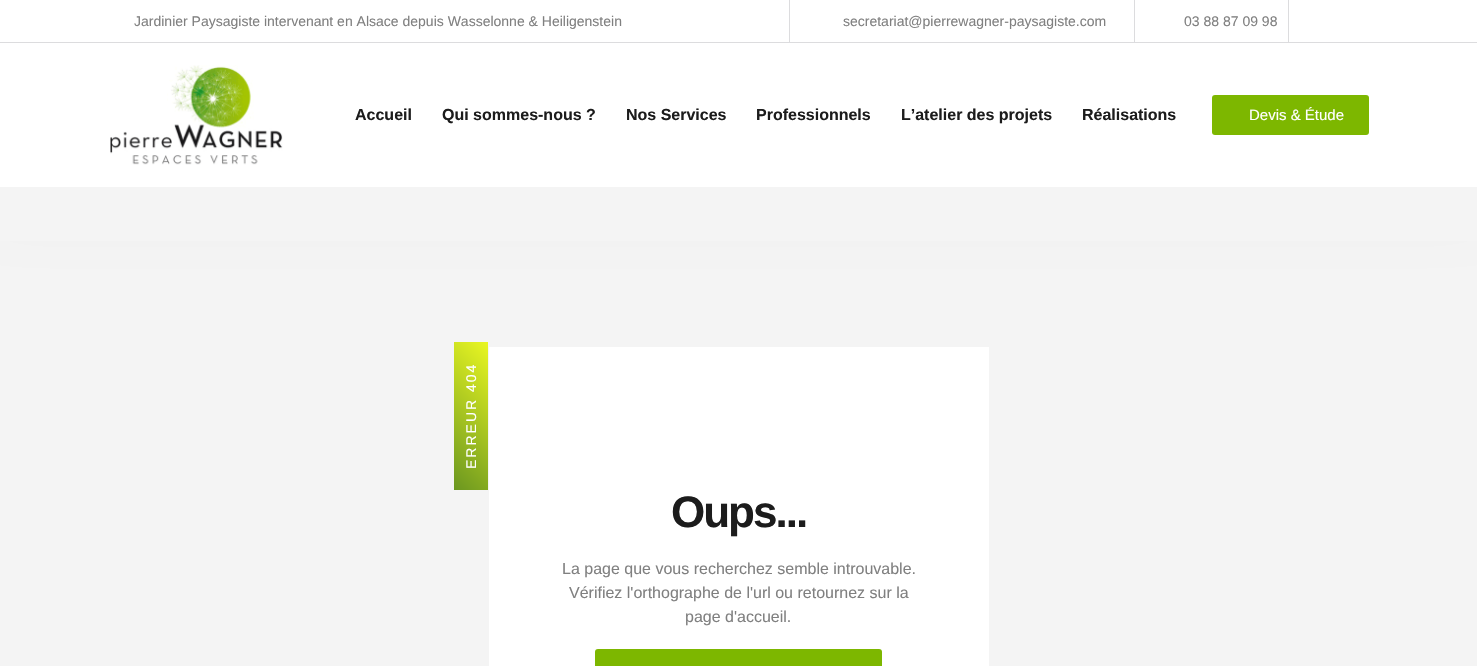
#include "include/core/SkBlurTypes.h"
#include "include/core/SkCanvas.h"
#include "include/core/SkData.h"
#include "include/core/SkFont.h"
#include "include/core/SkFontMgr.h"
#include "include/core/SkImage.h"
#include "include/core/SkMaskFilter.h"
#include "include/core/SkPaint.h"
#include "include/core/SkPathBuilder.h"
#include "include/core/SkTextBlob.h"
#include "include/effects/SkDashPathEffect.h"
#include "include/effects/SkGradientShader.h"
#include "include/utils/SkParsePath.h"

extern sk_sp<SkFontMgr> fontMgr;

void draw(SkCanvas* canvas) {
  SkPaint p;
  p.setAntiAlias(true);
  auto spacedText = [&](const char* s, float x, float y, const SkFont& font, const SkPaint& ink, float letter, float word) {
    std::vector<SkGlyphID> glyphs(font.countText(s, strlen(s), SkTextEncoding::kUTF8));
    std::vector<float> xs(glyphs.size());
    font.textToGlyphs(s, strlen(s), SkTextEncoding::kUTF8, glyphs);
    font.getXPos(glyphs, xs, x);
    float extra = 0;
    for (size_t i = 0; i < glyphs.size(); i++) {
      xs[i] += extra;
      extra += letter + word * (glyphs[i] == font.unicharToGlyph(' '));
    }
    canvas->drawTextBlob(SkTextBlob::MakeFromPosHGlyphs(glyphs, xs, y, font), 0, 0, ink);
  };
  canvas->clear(SkColorSetRGB(244, 244, 244));
  p.setColor(SkColorSetARGB(26, 0, 0, 0));
  p.setMaskFilter(SkMaskFilter::MakeBlur(kNormal_SkBlurStyle, 30));
  canvas->drawRect(SkRect::MakeLTRB(0, 53, 1477, 197), p);
  p.setMaskFilter(nullptr);
  p.setColor(SK_ColorWHITE);
  canvas->drawRect(SkRect::MakeLTRB(0, 0, 1477, 42), p);
  p.setColor(SkColorSetRGB(220, 220, 222));
  canvas->drawRect(SkRect::MakeLTRB(0, 42, 1477, 43), p);
  canvas->drawRect(SkRect::MakeLTRB(789, 0, 790, 42), p);
  canvas->drawRect(SkRect::MakeLTRB(1134, 0, 1135, 42), p);
  canvas->drawRect(SkRect::MakeLTRB(1288, 0, 1289, 42), p);
  p.setColor(SK_ColorWHITE);
  canvas->drawRect(SkRect::MakeLTRB(0, 43, 1477, 187), p);
  canvas->drawImageRect(SkImages::DeferredFromEncodedData(SkData::MakeFromFileName("images/1.png")), SkRect::MakeLTRB(110, 65, 283, 165), SkSamplingOptions());
  p.setColor(SkColorSetRGB(125, 183, 0));
  canvas->drawRoundRect(SkRect::MakeLTRB(1212, 95, 1369, 135), 3, 3, p);
  {
    const SkColor colors[] = {SkColorSetARGB(128, 244, 244, 244), SkColorSetRGB(244, 244, 244)};
    const float stops[] = {0, 0.65f};
    SkMatrix m = SkMatrix::Translate(739, 553).preScale(1044, 518);
    p.setShader(SkGradientShader::MakeRadial({0, 0}, 1, colors, stops, 2, SkTileMode::kClamp, 0, &m));
    p.setAlpha(255);
  }
  canvas->drawRect(SkRect::MakeLTRB(0, 187, 1477, 241), p);
  p.setShader(nullptr);
  p.setColor(SK_ColorWHITE);
  canvas->drawRect(SkRect::MakeLTRB(489, 347, 989, 666), p);
  {
    const SkColor colors[] = {SkColorSetRGB(106, 150, 32), SkColorSetRGB(234, 247, 34)};
    const float stops[] = {0, 1};
    const SkPoint ends[] = {{425, 462}, {517, 370}};
    p.setShader(SkGradientShader::MakeLinear(ends, colors, stops, 2, SkTileMode::kClamp));
    p.setAlpha(255);
  }
  canvas->drawRect(SkRect::MakeLTRB(454, 342, 488, 490), p);
  p.setShader(nullptr);
  p.setColor(SkColorSetRGB(125, 183, 0));
  canvas->drawRoundRect(SkRect::MakeLTRB(595, 649, 882, 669), 3, 3, p);
  SkFont font1(fontMgr->matchFamilyStyle("Liberation Sans", SkFontStyle::Normal()), 14);
  font1.setSubpixel(true);
  p.setColor(SkColorSetRGB(128, 128, 128));
  canvas->drawString("Jardinier Paysagiste intervenant en Alsace depuis Wasselonne & Heiligenstein", 134, 26, font1, p);
  canvas->drawString("secretariat@pierrewagner-paysagiste.com", 843, 26, font1, p);
  canvas->drawString("03 88 87 09 98", 1184, 26, font1, p);
  SkFont font2(fontMgr->matchFamilyStyle("Liberation Sans", SkFontStyle::Bold()), 16);
  font2.setSubpixel(true);
  p.setColor(SkColorSetRGB(28, 28, 28));
  canvas->drawString("Accueil", 355, 120, font2, p);
  canvas->drawString("Qui sommes-nous ?", 442, 120, font2, p);
  canvas->drawString("Nos Services", 626, 120, font2, p);
  canvas->drawString("Professionnels", 756, 120, font2, p);
  canvas->drawString("L’atelier des projets", 901, 120, font2, p);
  canvas->drawString("Réalisations", 1082, 120, font2, p);
  SkFont font3(fontMgr->matchFamilyStyle("Liberation Sans", SkFontStyle::Normal()), 15);
  font3.setSubpixel(true);
  p.setColor(SK_ColorWHITE);
  canvas->drawString("Devis & Étude", 1249, 120, font3, p);
  canvas->save();
  canvas->rotate(-90, 476, 469);
  spacedText("ERREUR 404", 476, 469, font1, p, 2, 0);
  canvas->restore();
  SkFont font4(fontMgr->matchFamilyStyle("Liberation Sans", SkFontStyle::Bold()), 44);
  font4.setSubpixel(true);
  p.setColor(SkColorSetRGB(28, 28, 28));
  spacedText("Oups...", 671, 527, font4, p, -2, 0);
  SkFont font5(fontMgr->matchFamilyStyle("Liberation Sans", SkFontStyle::Normal()), 16);
  font5.setSubpixel(true);
  p.setColor(SkColorSetRGB(128, 128, 128));
  canvas->drawString("La page que vous recherchez semble introuvable.", 562, 574, font5, p);
  canvas->drawString("Vérifiez l'orthographe de l'url ou retournez sur la", 569, 598, font5, p);
  canvas->drawString("page d'accueil.", 685, 622, font5, p);
}
